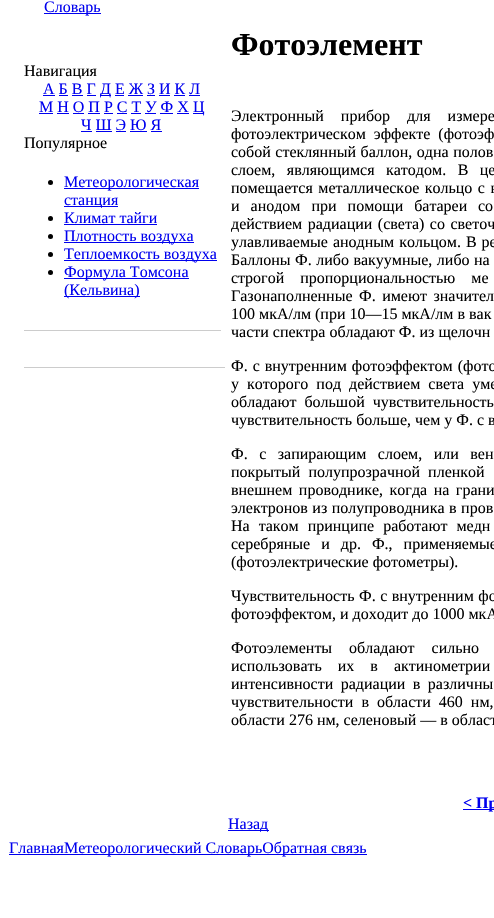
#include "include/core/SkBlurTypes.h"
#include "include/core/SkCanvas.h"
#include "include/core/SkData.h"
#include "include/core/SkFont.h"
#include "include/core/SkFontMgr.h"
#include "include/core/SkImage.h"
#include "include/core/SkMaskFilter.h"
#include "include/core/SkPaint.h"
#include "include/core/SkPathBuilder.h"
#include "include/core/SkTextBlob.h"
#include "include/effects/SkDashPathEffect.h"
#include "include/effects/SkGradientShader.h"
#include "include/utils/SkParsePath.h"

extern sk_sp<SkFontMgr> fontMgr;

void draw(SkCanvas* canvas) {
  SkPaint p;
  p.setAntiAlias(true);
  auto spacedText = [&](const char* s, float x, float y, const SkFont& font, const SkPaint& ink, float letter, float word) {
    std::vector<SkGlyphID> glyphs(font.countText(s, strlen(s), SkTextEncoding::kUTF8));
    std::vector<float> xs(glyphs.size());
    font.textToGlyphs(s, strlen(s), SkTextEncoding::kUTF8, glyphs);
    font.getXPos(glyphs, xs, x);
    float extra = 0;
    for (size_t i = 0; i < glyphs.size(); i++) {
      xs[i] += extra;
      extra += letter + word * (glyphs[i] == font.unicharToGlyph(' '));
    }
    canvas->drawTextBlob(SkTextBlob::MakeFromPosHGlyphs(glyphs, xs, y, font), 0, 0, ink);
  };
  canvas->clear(SK_ColorWHITE);
  p.setColor(SkColorSetRGB(0, 0, 238));
  canvas->drawRect(SkRect::MakeLTRB(44, 13, 101, 14), p);
  canvas->drawRect(SkRect::MakeLTRB(43, 95, 55, 96), p);
  canvas->drawRect(SkRect::MakeLTRB(100, 95, 111, 96), p);
  canvas->drawRect(SkRect::MakeLTRB(59, 95, 68, 96), p);
  canvas->drawRect(SkRect::MakeLTRB(72, 95, 83, 96), p);
  canvas->drawRect(SkRect::MakeLTRB(87, 95, 96, 96), p);
  canvas->drawRect(SkRect::MakeLTRB(115, 95, 124, 96), p);
  canvas->drawRect(SkRect::MakeLTRB(128, 95, 143, 96), p);
  canvas->drawRect(SkRect::MakeLTRB(147, 95, 155, 96), p);
  canvas->drawRect(SkRect::MakeLTRB(159, 95, 170, 96), p);
  canvas->drawRect(SkRect::MakeLTRB(174, 95, 185, 96), p);
  canvas->drawRect(SkRect::MakeLTRB(189, 95, 200, 96), p);
  canvas->drawRect(SkRect::MakeLTRB(39, 113, 53, 114), p);
  canvas->drawRect(SkRect::MakeLTRB(193, 113, 204, 114), p);
  canvas->drawRect(SkRect::MakeLTRB(57, 113, 69, 114), p);
  canvas->drawRect(SkRect::MakeLTRB(73, 113, 84, 114), p);
  canvas->drawRect(SkRect::MakeLTRB(88, 113, 100, 114), p);
  canvas->drawRect(SkRect::MakeLTRB(104, 113, 113, 114), p);
  canvas->drawRect(SkRect::MakeLTRB(117, 113, 127, 114), p);
  canvas->drawRect(SkRect::MakeLTRB(131, 113, 141, 114), p);
  canvas->drawRect(SkRect::MakeLTRB(145, 113, 156, 114), p);
  canvas->drawRect(SkRect::MakeLTRB(160, 113, 173, 114), p);
  canvas->drawRect(SkRect::MakeLTRB(177, 113, 189, 114), p);
  canvas->drawRect(SkRect::MakeLTRB(81, 131, 92, 132), p);
  canvas->drawRect(SkRect::MakeLTRB(96, 131, 112, 132), p);
  canvas->drawRect(SkRect::MakeLTRB(116, 131, 126, 132), p);
  canvas->drawRect(SkRect::MakeLTRB(130, 131, 147, 132), p);
  canvas->drawRect(SkRect::MakeLTRB(151, 131, 162, 132), p);
  p.setColor(SK_ColorBLACK);
  canvas->drawCircle(50.5f, 182.5f, 2.5f, p);
  p.setColor(SkColorSetRGB(0, 0, 238));
  canvas->drawRect(SkRect::MakeLTRB(64, 188, 199, 189), p);
  canvas->drawRect(SkRect::MakeLTRB(64, 206, 118, 207), p);
  p.setColor(SK_ColorBLACK);
  canvas->drawCircle(50.5f, 218.5f, 2.5f, p);
  p.setColor(SkColorSetRGB(0, 0, 238));
  canvas->drawRect(SkRect::MakeLTRB(64, 224, 157, 225), p);
  p.setColor(SK_ColorBLACK);
  canvas->drawCircle(50.5f, 236.5f, 2.5f, p);
  p.setColor(SkColorSetRGB(0, 0, 238));
  canvas->drawRect(SkRect::MakeLTRB(64, 242, 194, 243), p);
  p.setColor(SK_ColorBLACK);
  canvas->drawCircle(50.5f, 254.5f, 2.5f, p);
  p.setColor(SkColorSetRGB(0, 0, 238));
  canvas->drawRect(SkRect::MakeLTRB(64, 260, 217, 261), p);
  p.setColor(SK_ColorBLACK);
  canvas->drawCircle(50.5f, 272.5f, 2.5f, p);
  p.setColor(SkColorSetRGB(0, 0, 238));
  canvas->drawRect(SkRect::MakeLTRB(64, 278, 189, 279), p);
  canvas->drawRect(SkRect::MakeLTRB(64, 296, 140, 297), p);
  p.setColor(SkColorSetRGB(204, 204, 204));
  canvas->drawRect(SkRect::MakeLTRB(24, 330, 221, 331), p);
  canvas->drawRect(SkRect::MakeLTRB(24, 367, 225, 368), p);
  p.setColor(SkColorSetRGB(0, 0, 238));
  canvas->drawRect(SkRect::MakeLTRB(463, 809, 494, 810), p);
  canvas->drawRect(SkRect::MakeLTRB(228, 830, 269, 831), p);
  canvas->drawRect(SkRect::MakeLTRB(9, 854, 367, 855), p);
  SkFont font1(fontMgr->matchFamilyStyle("Liberation Serif", SkFontStyle::Normal()), 16);
  font1.setSubpixel(true);
  canvas->drawString("Словарь", 44, 12, font1, p);
  p.setColor(SK_ColorBLACK);
  canvas->drawString("Навигация", 24, 76, font1, p);
  p.setColor(SkColorSetRGB(0, 0, 238));
  canvas->drawString("А Б В Г", 43, 94, font1, p);
  canvas->drawString("Д Е Ж З И К Л", 100, 94, font1, p);
  canvas->drawString("М Н О П Р С Т У Ф Х", 39, 112, font1, p);
  canvas->drawString("Ц", 193, 112, font1, p);
  canvas->drawString("Ч Ш Э Ю Я", 81, 130, font1, p);
  p.setColor(SK_ColorBLACK);
  canvas->drawString("Популярное", 24, 148, font1, p);
  p.setColor(SkColorSetRGB(0, 0, 238));
  canvas->drawString("Метеорологическая", 64, 187, font1, p);
  canvas->drawString("станция", 64, 205, font1, p);
  canvas->drawString("Климат тайги", 64, 223, font1, p);
  canvas->drawString("Плотность воздуха", 64, 241, font1, p);
  canvas->drawString("Теплоемкость воздуха", 64, 259, font1, p);
  canvas->drawString("Формула Томсона", 64, 277, font1, p);
  canvas->drawString("(Кельвина)", 64, 295, font1, p);
  SkFont font2(fontMgr->matchFamilyStyle("Liberation Serif", SkFontStyle::Bold()), 32);
  font2.setSubpixel(true);
  p.setColor(SK_ColorBLACK);
  canvas->drawString("Фотоэлемент", 231, 55, font2, p);
  spacedText("Электронный прибор для измере", 231, 121, font1, p, 0, 13);
  spacedText("фотоэлектрическом эффекте (фотоэф", 231, 139, font1, p, 0, 4);
  spacedText("собой стеклянный баллон, одна полов", 231, 157, font1, p, 0, 0.5f);
  spacedText("слоем, являющимся катодом. В це", 231, 175, font1, p, 0, 7.5f);
  spacedText("помещается металлическое кольцо с в", 231, 193, font1, p, 0, 1.5f);
  spacedText("и анодом при помощи батареи", 231, 211, font1, p, 0, 7);
  canvas->drawString("со", 478, 211, font1, p);
  spacedText("действием радиации (света) со светоч", 231, 229, font1, p, 0, 1.5f);
  spacedText("улавливаемые анодным кольцом. В ре", 231, 247, font1, p, 0, 1);
  spacedText("Баллоны Ф. либо вакуумные, либо на", 231, 265, font1, p, 0, 0.5f);
  spacedText("строгой пропорциональностью ме", 231, 283, font1, p, 0, 12);
  spacedText("Газонаполненные Ф. имеют значител", 231, 301, font1, p, 0, 2.5f);
  canvas->drawString("100 мкА/лм (при 10—15 мкА/лм в вак", 231, 319, font1, p);
  canvas->drawString("части спектра обладают Ф. из щелочн", 231, 337, font1, p);
  spacedText("Ф. с внутренним фотоэффектом (фото", 231, 371, font1, p, 0, 1);
  spacedText("у которого под действием света уме", 231, 389, font1, p, 0, 4);
  spacedText("обладают большой чувствительность", 231, 407, font1, p, 0, 4);
  canvas->drawString("чувствительность больше, чем у Ф. с в", 231, 425, font1, p);
  spacedText("Ф. с запирающим слоем, или вен", 231, 459, font1, p, 0, 7.5f);
  spacedText("покрытый полупрозрачной пленкой", 231, 477, font1, p, 0, 4);
  spacedText("внешнем проводнике, когда на грани", 231, 495, font1, p, 0, 2.5f);
  spacedText("электронов из полупроводника в пров", 231, 513, font1, p, 0, 0.5f);
  spacedText("На таком принципе работают медн", 231, 531, font1, p, 0, 5);
  spacedText("серебряные и др. Ф., применяемые", 231, 549, font1, p, 0, 7);
  canvas->drawString("(фотоэлектрические фотометры).", 231, 567, font1, p);
  spacedText("Чувствительность Ф. с внутренним фо", 231, 601, font1, p, 0, 0.5f);
  canvas->drawString("фотоэффектом, и доходит до 1000 мкА", 231, 619, font1, p);
  spacedText("Фотоэлементы обладают сильно", 231, 653, font1, p, 0, 13);
  spacedText("использовать их в актинометрии", 231, 671, font1, p, 0, 12);
  spacedText("интенсивности радиации в различны", 231, 689, font1, p, 0, 3.5f);
  spacedText("чувствительности в области 460 нм,", 231, 707, font1, p, 0, 4);
  canvas->drawString("области 276 нм, селеновый — в област", 231, 725, font1, p);
  SkFont font3(fontMgr->matchFamilyStyle("Liberation Serif", SkFontStyle::Bold()), 16);
  font3.setSubpixel(true);
  p.setColor(SkColorSetRGB(0, 0, 238));
  canvas->drawString("< Пр", 463, 808, font3, p);
  canvas->drawString("Назад", 228, 829, font1, p);
  canvas->drawString("ГлавнаяМетеорологический СловарьОбратная связь", 9, 853, font1, p);
}
